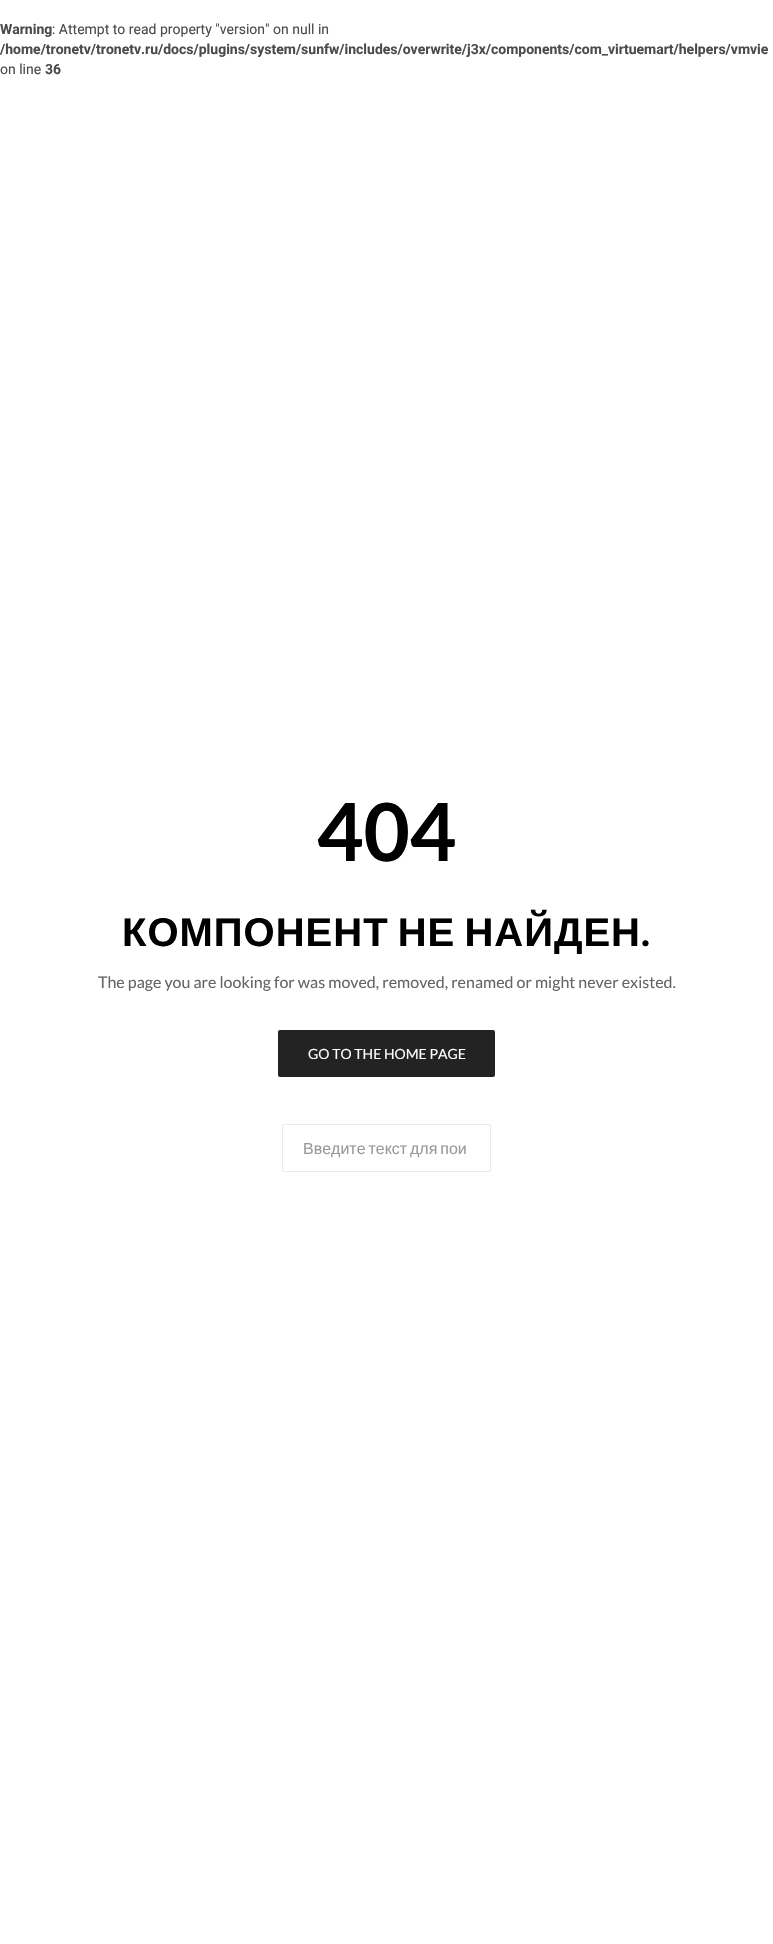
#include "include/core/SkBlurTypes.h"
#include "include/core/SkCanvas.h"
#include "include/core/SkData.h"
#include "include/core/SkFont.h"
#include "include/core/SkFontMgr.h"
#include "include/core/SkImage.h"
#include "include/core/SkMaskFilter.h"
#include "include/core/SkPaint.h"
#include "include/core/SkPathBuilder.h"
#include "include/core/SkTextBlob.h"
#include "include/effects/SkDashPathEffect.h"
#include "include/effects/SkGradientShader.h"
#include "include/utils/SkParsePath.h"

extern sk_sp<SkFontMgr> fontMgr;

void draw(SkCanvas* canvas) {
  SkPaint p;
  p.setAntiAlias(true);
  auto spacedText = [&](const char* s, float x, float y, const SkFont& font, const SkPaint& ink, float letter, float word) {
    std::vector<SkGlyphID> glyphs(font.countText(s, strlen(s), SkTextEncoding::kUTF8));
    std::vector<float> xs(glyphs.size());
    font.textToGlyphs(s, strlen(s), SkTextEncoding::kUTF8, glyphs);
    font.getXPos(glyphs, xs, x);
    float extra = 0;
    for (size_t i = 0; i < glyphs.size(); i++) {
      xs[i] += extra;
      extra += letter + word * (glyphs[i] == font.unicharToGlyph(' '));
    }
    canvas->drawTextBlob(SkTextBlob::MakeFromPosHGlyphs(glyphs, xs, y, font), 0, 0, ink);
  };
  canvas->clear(SK_ColorWHITE);
  p.setColor(SkColorSetRGB(35, 35, 35));
  canvas->drawRoundRect(SkRect::MakeLTRB(278, 1030, 495, 1077), 2, 2, p);
  p.setStyle(SkPaint::kStroke_Style);
  p.setStrokeWidth(1);
  p.setColor(SkColorSetRGB(234, 234, 234));
  canvas->drawRoundRect(SkRect::MakeLTRB(282.5f, 1124.5f, 490.5f, 1171.5f), 1.5f, 1.5f, p);
  SkFont font1(fontMgr->matchFamilyStyle("Roboto", SkFontStyle::Bold()), 14);
  font1.setSubpixel(true);
  p.setStyle(SkPaint::kFill_Style);
  p.setColor(SkColorSetRGB(75, 75, 75));
  canvas->drawString("Warning", 0, 34, font1, p);
  SkFont font2(fontMgr->matchFamilyStyle("Roboto", SkFontStyle::Normal()), 14);
  font2.setSubpixel(true);
  canvas->drawString(": Attempt to read property \"version\" on null in", 52, 34, font2, p);
  canvas->drawString("/home/tronetv/tronetv.ru/docs/plugins/system/sunfw/includes/overwrite/j3x/components/com_virtuemart/helpers/vmvie", 0, 54, font1, p);
  canvas->drawString("on line", 0, 74, font2, p);
  canvas->drawString("36", 45, 74, font1, p);
  SkFont font3(fontMgr->matchFamilyStyle("Lato", SkFontStyle::Bold()), 80);
  font3.setSubpixel(true);
  p.setColor(SK_ColorBLACK);
  canvas->drawString("404", 317, 861, font3, p);
  SkFont font4(fontMgr->matchFamilyStyle("Liberation Sans", SkFontStyle::Bold()), 40);
  font4.setSubpixel(true);
  spacedText("КОМПОНЕНТ НЕ НАЙДЕН", 122, 946, font4, p, 1, -3);
  SkFont font5(fontMgr->matchFamilyStyle("Lato", SkFontStyle::Bold()), 40);
  font5.setSubpixel(true);
  spacedText(".", 641, 946, font5, p, 1, 0);
  SkFont font6(fontMgr->matchFamilyStyle("Lato", SkFontStyle::Normal()), 16);
  font6.setSubpixel(true);
  p.setColor(SkColorSetRGB(100, 100, 100));
  canvas->drawString("The page you are looking for was moved, removed, renamed or might never existed.", 98, 988, font6, p);
  SkFont font7(fontMgr->matchFamilyStyle("Lato", SkFontStyle::Normal()), 14);
  font7.setSubpixel(true);
  p.setColor(SK_ColorWHITE);
  canvas->drawString("GO TO THE HOME PAGE", 308, 1059, font7, p);
  canvas->save();
  canvas->clipRect(SkRect::MakeLTRB(303, 1138, 466, 1158));
  SkFont font8(fontMgr->matchFamilyStyle("Liberation Sans", SkFontStyle::Normal()), 16);
  font8.setSubpixel(true);
  p.setColor(SkColorSetRGB(153, 153, 153));
  spacedText("Введите текст для пои", 303, 1154, font8, p, 0, -1.5f);
  canvas->restore();
}
